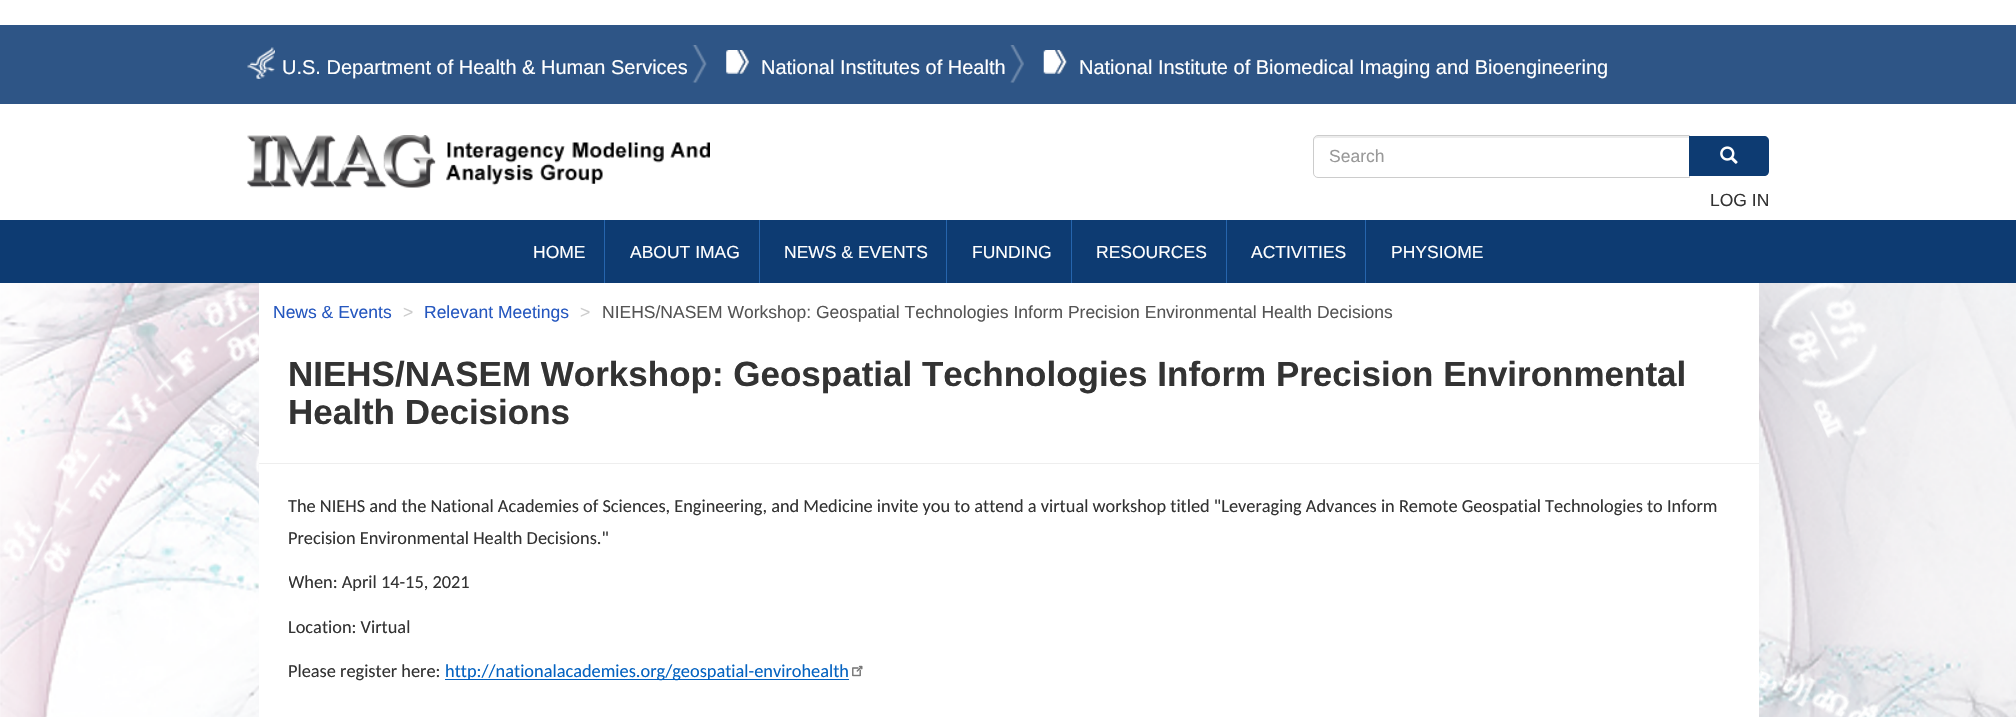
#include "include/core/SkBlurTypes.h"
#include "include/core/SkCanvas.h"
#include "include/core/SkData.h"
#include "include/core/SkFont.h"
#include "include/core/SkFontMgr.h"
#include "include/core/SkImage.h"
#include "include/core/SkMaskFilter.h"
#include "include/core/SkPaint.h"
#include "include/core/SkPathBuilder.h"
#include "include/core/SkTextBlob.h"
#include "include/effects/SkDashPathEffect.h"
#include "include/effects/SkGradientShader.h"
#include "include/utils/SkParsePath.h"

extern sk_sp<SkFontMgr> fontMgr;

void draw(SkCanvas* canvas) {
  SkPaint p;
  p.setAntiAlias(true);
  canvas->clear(SK_ColorWHITE);
  canvas->drawImageRect(SkImages::DeferredFromEncodedData(SkData::MakeFromFileName("images/1.png")), SkRect::MakeLTRB(0, 283, 2016, 717), SkSamplingOptions());
  p.setColor(SkColorSetRGB(46, 85, 134));
  canvas->drawRect(SkRect::MakeLTRB(0, 25, 2016, 104), p);
  canvas->drawImageRect(SkImages::DeferredFromEncodedData(SkData::MakeFromFileName("images/2.png")), SkRect::MakeLTRB(692, 45, 707, 83), SkSamplingOptions());
  canvas->drawImageRect(SkImages::DeferredFromEncodedData(SkData::MakeFromFileName("images/3.png")), SkRect::MakeLTRB(247, 47, 275, 79), SkSamplingOptions());
  canvas->drawImageRect(SkImages::DeferredFromEncodedData(SkData::MakeFromFileName("images/4.png")), SkRect::MakeLTRB(1010, 45, 1024, 83), SkSamplingOptions());
  canvas->drawImageRect(SkImages::DeferredFromEncodedData(SkData::MakeFromFileName("images/5.png")), SkRect::MakeLTRB(726, 50, 749, 74), SkSamplingOptions());
  canvas->drawImageRect(SkImages::DeferredFromEncodedData(SkData::MakeFromFileName("images/6.png")), SkRect::MakeLTRB(1043, 50, 1067, 74), SkSamplingOptions());
  canvas->drawImageRect(SkImages::DeferredFromEncodedData(SkData::MakeFromFileName("images/7.png")), SkRect::MakeLTRB(247, 135, 710, 188), SkSamplingOptions());
  p.setColor(SkColorSetRGB(236, 236, 236));
  canvas->drawPath(SkPathBuilder().moveTo(1318, 138).lineTo(1689, 138).lineTo(1689, 136).lineTo(1318, 136).cubicTo(1315, 136, 1314, 138, 1314, 141).cubicTo(1314, 139, 1315, 138, 1318, 138).close().detach(), p);
  p.setStyle(SkPaint::kStroke_Style);
  p.setStrokeWidth(1);
  p.setColor(SkColorSetRGB(204, 204, 204));
  canvas->drawPath(SkPathBuilder().moveTo(1318, 135.5f).lineTo(1689.5f, 135.5f).lineTo(1689.5f, 177.5f).lineTo(1318, 177.5f).cubicTo(1315.5f, 177.5f, 1313.5f, 175.5f, 1313.5f, 173).lineTo(1313.5f, 140).cubicTo(1313.5f, 137.5f, 1315.5f, 135.5f, 1318, 135.5f).close().detach(), p);
  p.setStyle(SkPaint::kFill_Style);
  p.setColor(SkColorSetRGB(13, 59, 114));
  canvas->drawPath(SkPathBuilder().moveTo(1689, 136).lineTo(1764, 136).cubicTo(1767, 136, 1769, 138, 1769, 141).lineTo(1769, 171).cubicTo(1769, 174, 1767, 176, 1764, 176).lineTo(1689, 176).close().detach(), p);
  canvas->drawImageRect(SkImages::DeferredFromEncodedData(SkData::MakeFromFileName("images/8.png")), SkRect::MakeLTRB(1720, 146, 1738, 164), SkSamplingOptions());
  canvas->drawRect(SkRect::MakeLTRB(0, 220, 2016, 283), p);
  p.setColor(SkColorSetRGB(38, 101, 173));
  canvas->drawRect(SkRect::MakeLTRB(604, 220, 605, 283), p);
  canvas->drawRect(SkRect::MakeLTRB(759, 220, 760, 283), p);
  canvas->drawRect(SkRect::MakeLTRB(946, 220, 947, 283), p);
  canvas->drawRect(SkRect::MakeLTRB(1071, 220, 1072, 283), p);
  canvas->drawRect(SkRect::MakeLTRB(1226, 220, 1227, 283), p);
  canvas->drawRect(SkRect::MakeLTRB(1365, 220, 1366, 283), p);
  p.setColor(SK_ColorWHITE);
  canvas->drawRect(SkRect::MakeLTRB(259, 283, 1759, 717), p);
  p.setColor(SkColorSetRGB(238, 238, 238));
  canvas->drawRect(SkRect::MakeLTRB(259, 463, 1759, 464), p);
  p.setColor(SkColorSetRGB(5, 99, 193));
  canvas->drawRect(SkRect::MakeLTRB(445, 679, 849, 680), p);
  canvas->drawImageRect(SkImages::DeferredFromEncodedData(SkData::MakeFromFileName("images/9.png")), SkRect::MakeLTRB(852, 665, 863, 677), SkSamplingOptions());
  SkFont font1(fontMgr->matchFamilyStyle("Liberation Sans", SkFontStyle::Normal()), 20);
  font1.setSubpixel(true);
  p.setColor(SK_ColorWHITE);
  canvas->drawString("U.S. Department of Health & Human Services", 282, 74, font1, p);
  canvas->drawString("National Institutes of Health", 761, 74, font1, p);
  canvas->drawString("National Institute of Biomedical Imaging and Bioengineering", 1079, 74, font1, p);
  SkFont font2(fontMgr->matchFamilyStyle("Liberation Sans", SkFontStyle::Normal()), 17.5f);
  font2.setSubpixel(true);
  p.setColor(SkColorSetRGB(153, 153, 153));
  canvas->drawString("Search", 1329, 162, font2, p);
  p.setColor(SkColorSetRGB(51, 51, 51));
  canvas->drawString("LOG IN", 1710, 206, font2, p);
  p.setColor(SK_ColorWHITE);
  canvas->drawString("HOME", 533, 258, font2, p);
  canvas->drawString("ABOUT IMAG", 630, 258, font2, p);
  canvas->drawString("NEWS & EVENTS", 784, 258, font2, p);
  canvas->drawString("FUNDING", 972, 258, font2, p);
  canvas->drawString("RESOURCES", 1096, 258, font2, p);
  canvas->drawString("ACTIVITIES", 1251, 258, font2, p);
  canvas->drawString("PHYSIOME", 1391, 258, font2, p);
  p.setColor(SkColorSetRGB(37, 87, 191));
  canvas->drawString("News & Events", 273, 318, font2, p);
  p.setColor(SkColorSetRGB(204, 204, 204));
  canvas->drawString(">", 403, 318, font2, p);
  p.setColor(SkColorSetRGB(37, 87, 191));
  canvas->drawString("Relevant Meetings", 424, 318, font2, p);
  p.setColor(SkColorSetRGB(204, 204, 204));
  canvas->drawString(">", 580, 318, font2, p);
  p.setColor(SkColorSetRGB(85, 85, 85));
  canvas->drawString("NIEHS/NASEM Workshop: Geospatial Technologies Inform Precision Environmental Health Decisions", 602, 318, font2, p);
  SkFont font3(fontMgr->matchFamilyStyle("Liberation Sans", SkFontStyle::Bold()), 35);
  font3.setSubpixel(true);
  p.setColor(SkColorSetRGB(51, 51, 51));
  canvas->drawString("NIEHS/NASEM Workshop: Geospatial Technologies Inform Precision Environmental", 288, 386, font3, p);
  canvas->drawString("Health Decisions", 288, 424, font3, p);
  SkFont font4(fontMgr->matchFamilyStyle("Carlito", SkFontStyle::Normal()), 18.33f);
  font4.setSubpixel(true);
  canvas->drawString("The NIEHS and the National Academies of Sciences, Engineering, and Medicine invite you to attend a virtual workshop titled \"Leveraging Advances in Remote Geospatial Technologies to Inform", 288, 512, font4, p);
  canvas->drawString("Precision Environmental Health Decisions.\"", 288, 544, font4, p);
  canvas->save();
  canvas->clipRect(SkRect::MakeLTRB(289, 489, 1729, 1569));
  canvas->drawString("When: April 14-15, 2021", 288, 588, font4, p);
  canvas->restore();
  canvas->drawString("Location: Virtual", 288, 633, font4, p);
  canvas->drawString("Please register here:", 288, 677, font4, p);
  p.setColor(SkColorSetRGB(5, 99, 193));
  canvas->drawString("http://nationalacademies.org/geospatial-envirohealth", 445, 677, font4, p);
}
